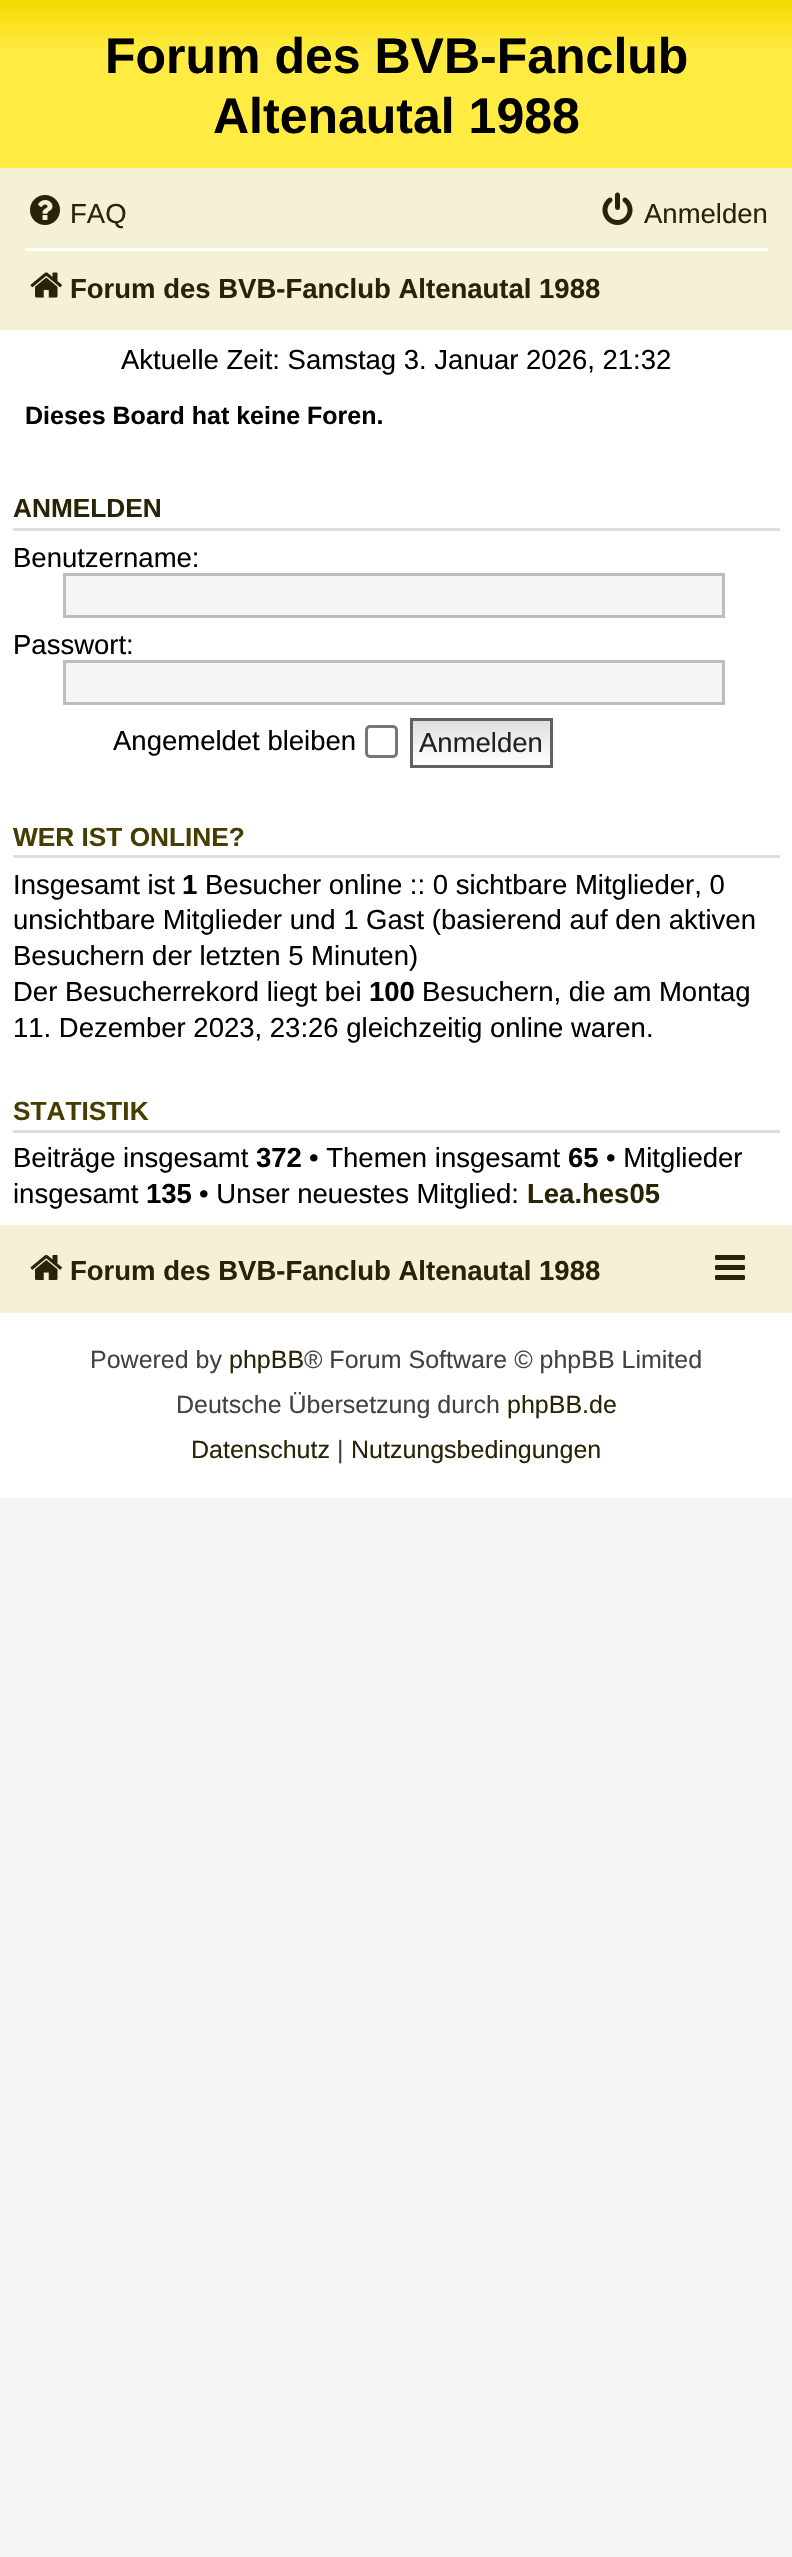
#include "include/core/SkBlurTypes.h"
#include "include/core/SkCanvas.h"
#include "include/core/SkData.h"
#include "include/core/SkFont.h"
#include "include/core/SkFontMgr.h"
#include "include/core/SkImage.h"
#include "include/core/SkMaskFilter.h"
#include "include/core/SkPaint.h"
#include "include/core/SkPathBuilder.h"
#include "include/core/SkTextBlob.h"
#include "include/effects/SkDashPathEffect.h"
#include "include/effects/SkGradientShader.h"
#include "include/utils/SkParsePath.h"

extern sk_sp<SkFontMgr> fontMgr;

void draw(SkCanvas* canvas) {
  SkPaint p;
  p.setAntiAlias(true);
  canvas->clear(SkColorSetRGB(245, 245, 245));
  p.setColor(SK_ColorWHITE);
  canvas->drawRect(SkRect::MakeLTRB(0, 330, 792, 1498), p);
  {
    const SkColor colors[] = {SkColorSetRGB(255, 248, 194), SkColorSetRGB(245, 219, 0), SkColorSetRGB(255, 235, 66), SkColorSetRGB(255, 235, 66)};
    const float stops[] = {0, 0, 0.3f, 1};
    const SkPoint ends[] = {{396, 0}, {396, 170}};
    p.setShader(SkGradientShader::MakeLinear(ends, colors, stops, 4, SkTileMode::kClamp));
    p.setAlpha(255);
  }
  canvas->drawRect(SkRect::MakeLTRB(0, 0, 792, 168), p);
  p.setShader(nullptr);
  p.setColor(SkColorSetRGB(244, 241, 215));
  canvas->drawRect(SkRect::MakeLTRB(0, 168, 792, 330), p);
  canvas->drawImageRect(SkImages::DeferredFromEncodedData(SkData::MakeFromFileName("images/1.png")), SkRect::MakeLTRB(30, 195, 60, 225), SkSamplingOptions());
  canvas->drawImageRect(SkImages::DeferredFromEncodedData(SkData::MakeFromFileName("images/2.png")), SkRect::MakeLTRB(602, 192, 633, 225), SkSamplingOptions());
  p.setColor(SK_ColorWHITE);
  canvas->drawRect(SkRect::MakeLTRB(25, 248, 768, 251), p);
  canvas->drawImageRect(SkImages::DeferredFromEncodedData(SkData::MakeFromFileName("images/3.png")), SkRect::MakeLTRB(30, 272, 62, 298), SkSamplingOptions());
  p.setColor(SkColorSetRGB(222, 222, 222));
  canvas->drawRect(SkRect::MakeLTRB(13, 528, 780, 531), p);
  p.setColor(SkColorSetRGB(245, 245, 245));
  canvas->drawRect(SkRect::MakeLTRB(64.5f, 574.5f, 723.5f, 616.5f), p);
  p.setStyle(SkPaint::kStroke_Style);
  p.setStrokeWidth(3);
  p.setColor(SkColorSetRGB(189, 189, 189));
  canvas->drawRect(SkRect::MakeLTRB(64.5f, 574.5f, 723.5f, 616.5f), p);
  p.setStyle(SkPaint::kFill_Style);
  p.setColor(SkColorSetRGB(245, 245, 245));
  canvas->drawRect(SkRect::MakeLTRB(64.5f, 661.5f, 723.5f, 703.5f), p);
  p.setStyle(SkPaint::kStroke_Style);
  p.setColor(SkColorSetRGB(189, 189, 189));
  canvas->drawRect(SkRect::MakeLTRB(64.5f, 661.5f, 723.5f, 703.5f), p);
  p.setColor(SkColorSetRGB(118, 118, 118));
  canvas->drawRoundRect(SkRect::MakeLTRB(366.5f, 726.5f, 396.5f, 756.5f), 3.5f, 3.5f, p);
  p.setStyle(SkPaint::kFill_Style);
  {
    const SkColor colors[] = {SkColorSetRGB(222, 222, 222), SK_ColorWHITE};
    const float stops[] = {0, 1};
    const SkPoint ends[] = {{481, 720}, {481, 765}};
    p.setShader(SkGradientShader::MakeLinear(ends, colors, stops, 2, SkTileMode::kClamp));
    p.setAlpha(255);
  }
  canvas->drawRect(SkRect::MakeLTRB(413, 721, 550, 762), p);
  p.setStyle(SkPaint::kStroke_Style);
  p.setShader(nullptr);
  p.setColor(SkColorSetRGB(97, 97, 97));
  canvas->drawRect(SkRect::MakeLTRB(411.5f, 719.5f, 551.5f, 766.5f), p);
  p.setStyle(SkPaint::kFill_Style);
  p.setColor(SkColorSetRGB(222, 222, 222));
  canvas->drawRect(SkRect::MakeLTRB(13, 855, 780, 858), p);
  canvas->drawRect(SkRect::MakeLTRB(13, 1130, 780, 1133), p);
  p.setColor(SkColorSetRGB(244, 241, 215));
  canvas->drawRect(SkRect::MakeLTRB(0, 1225, 792, 1313), p);
  canvas->drawImageRect(SkImages::DeferredFromEncodedData(SkData::MakeFromFileName("images/4.png")), SkRect::MakeLTRB(30, 1254, 62, 1280), SkSamplingOptions());
  canvas->drawImageRect(SkImages::DeferredFromEncodedData(SkData::MakeFromFileName("images/5.png")), SkRect::MakeLTRB(715, 1255, 745, 1280), SkSamplingOptions());
  SkFont font1(fontMgr->matchFamilyStyle("Liberation Sans", SkFontStyle::Bold()), 50);
  font1.setSubpixel(true);
  p.setColor(SK_ColorBLACK);
  canvas->drawString("Forum des BVB-Fanclub", 105, 73, font1, p);
  canvas->drawString("Altenautal 1988", 213, 133, font1, p);
  SkFont font2(fontMgr->matchFamilyStyle("Liberation Sans", SkFontStyle::Normal()), 27.5f);
  font2.setSubpixel(true);
  p.setColor(SkColorSetRGB(40, 36, 5));
  canvas->drawString("FAQ", 70, 223, font2, p);
  canvas->drawString("Anmelden", 644, 223, font2, p);
  SkFont font3(fontMgr->matchFamilyStyle("Liberation Sans", SkFontStyle::Bold()), 27.5f);
  font3.setSubpixel(true);
  canvas->drawString("Forum des BVB-Fanclub Altenautal 1988", 70, 298, font3, p);
  p.setColor(SK_ColorBLACK);
  canvas->drawString("Aktuelle Zeit: Samstag 3. Januar 2026, 21:32", 121, 369, font2, p);
  SkFont font4(fontMgr->matchFamilyStyle("Liberation Sans", SkFontStyle::Bold()), 25);
  font4.setSubpixel(true);
  canvas->drawString("Dieses Board hat keine Foren.", 25, 424, font4, p);
  SkFont font5(fontMgr->matchFamilyStyle("Liberation Sans", SkFontStyle::Bold()), 26.25f);
  font5.setSubpixel(true);
  p.setColor(SkColorSetRGB(40, 36, 5));
  canvas->drawString("ANMELDEN", 13, 517, font5, p);
  p.setColor(SK_ColorBLACK);
  canvas->drawString("Benutzername:", 13, 567, font2, p);
  canvas->drawString("Passwort:", 13, 654, font2, p);
  canvas->drawString("Angemeldet bleiben", 113, 750, font2, p);
  p.setColor(SkColorSetRGB(33, 33, 33));
  canvas->drawString("Anmelden", 419, 752, font2, p);
  p.setColor(SkColorSetRGB(70, 62, 0));
  canvas->drawString("WER IST ONLINE?", 13, 846, font5, p);
  p.setColor(SK_ColorBLACK);
  canvas->drawString("Insgesamt ist", 13, 894, font2, p);
  canvas->drawString("1", 182, 894, font3, p);
  canvas->drawString("Besucher online :: 0 sichtbare Mitglieder, 0", 205, 894, font2, p);
  canvas->drawString("unsichtbare Mitglieder und 1 Gast (basierend auf den aktiven", 13, 929, font2, p);
  canvas->drawString("Besuchern der letzten 5 Minuten)", 13, 965, font2, p);
  canvas->drawString("Der Besucherrekord liegt bei", 13, 1001, font2, p);
  canvas->drawString("100", 369, 1001, font3, p);
  canvas->drawString("Besuchern, die am Montag", 422, 1001, font2, p);
  canvas->drawString("11. Dezember 2023, 23:26 gleichzeitig online waren.", 13, 1037, font2, p);
  p.setColor(SkColorSetRGB(70, 62, 0));
  canvas->drawString("STATISTIK", 13, 1120, font5, p);
  p.setColor(SK_ColorBLACK);
  canvas->drawString("Beiträge insgesamt", 13, 1167, font2, p);
  canvas->drawString("372", 256, 1167, font3, p);
  canvas->drawString("• Themen insgesamt", 309, 1167, font2, p);
  canvas->drawString("65", 568, 1167, font3, p);
  canvas->drawString("• Mitglieder", 606, 1167, font2, p);
  canvas->drawString("insgesamt", 13, 1203, font2, p);
  canvas->drawString("135", 146, 1203, font3, p);
  canvas->drawString("• Unser neuestes Mitglied:", 199, 1203, font2, p);
  p.setColor(SkColorSetRGB(40, 36, 5));
  canvas->drawString("Lea.hes05", 527, 1203, font3, p);
  canvas->drawString("Forum des BVB-Fanclub Altenautal 1988", 70, 1280, font3, p);
  SkFont font6(fontMgr->matchFamilyStyle("Liberation Sans", SkFontStyle::Normal()), 25);
  font6.setSubpixel(true);
  p.setColor(SkColorSetRGB(66, 66, 66));
  canvas->drawString("Powered by", 90, 1368, font6, p);
  p.setColor(SkColorSetRGB(40, 36, 5));
  canvas->drawString("phpBB", 229, 1368, font6, p);
  p.setColor(SkColorSetRGB(66, 66, 66));
  canvas->drawString("® Forum Software © phpBB Limited", 304, 1368, font6, p);
  canvas->drawString("Deutsche Übersetzung durch", 176, 1413, font6, p);
  p.setColor(SkColorSetRGB(40, 36, 5));
  canvas->drawString("phpBB.de", 507, 1413, font6, p);
  canvas->drawString("Datenschutz", 191, 1458, font6, p);
  p.setColor(SkColorSetRGB(66, 66, 66));
  canvas->drawString("|", 337, 1458, font6, p);
  p.setColor(SkColorSetRGB(40, 36, 5));
  canvas->drawString("Nutzungsbedingungen", 351, 1458, font6, p);
}
